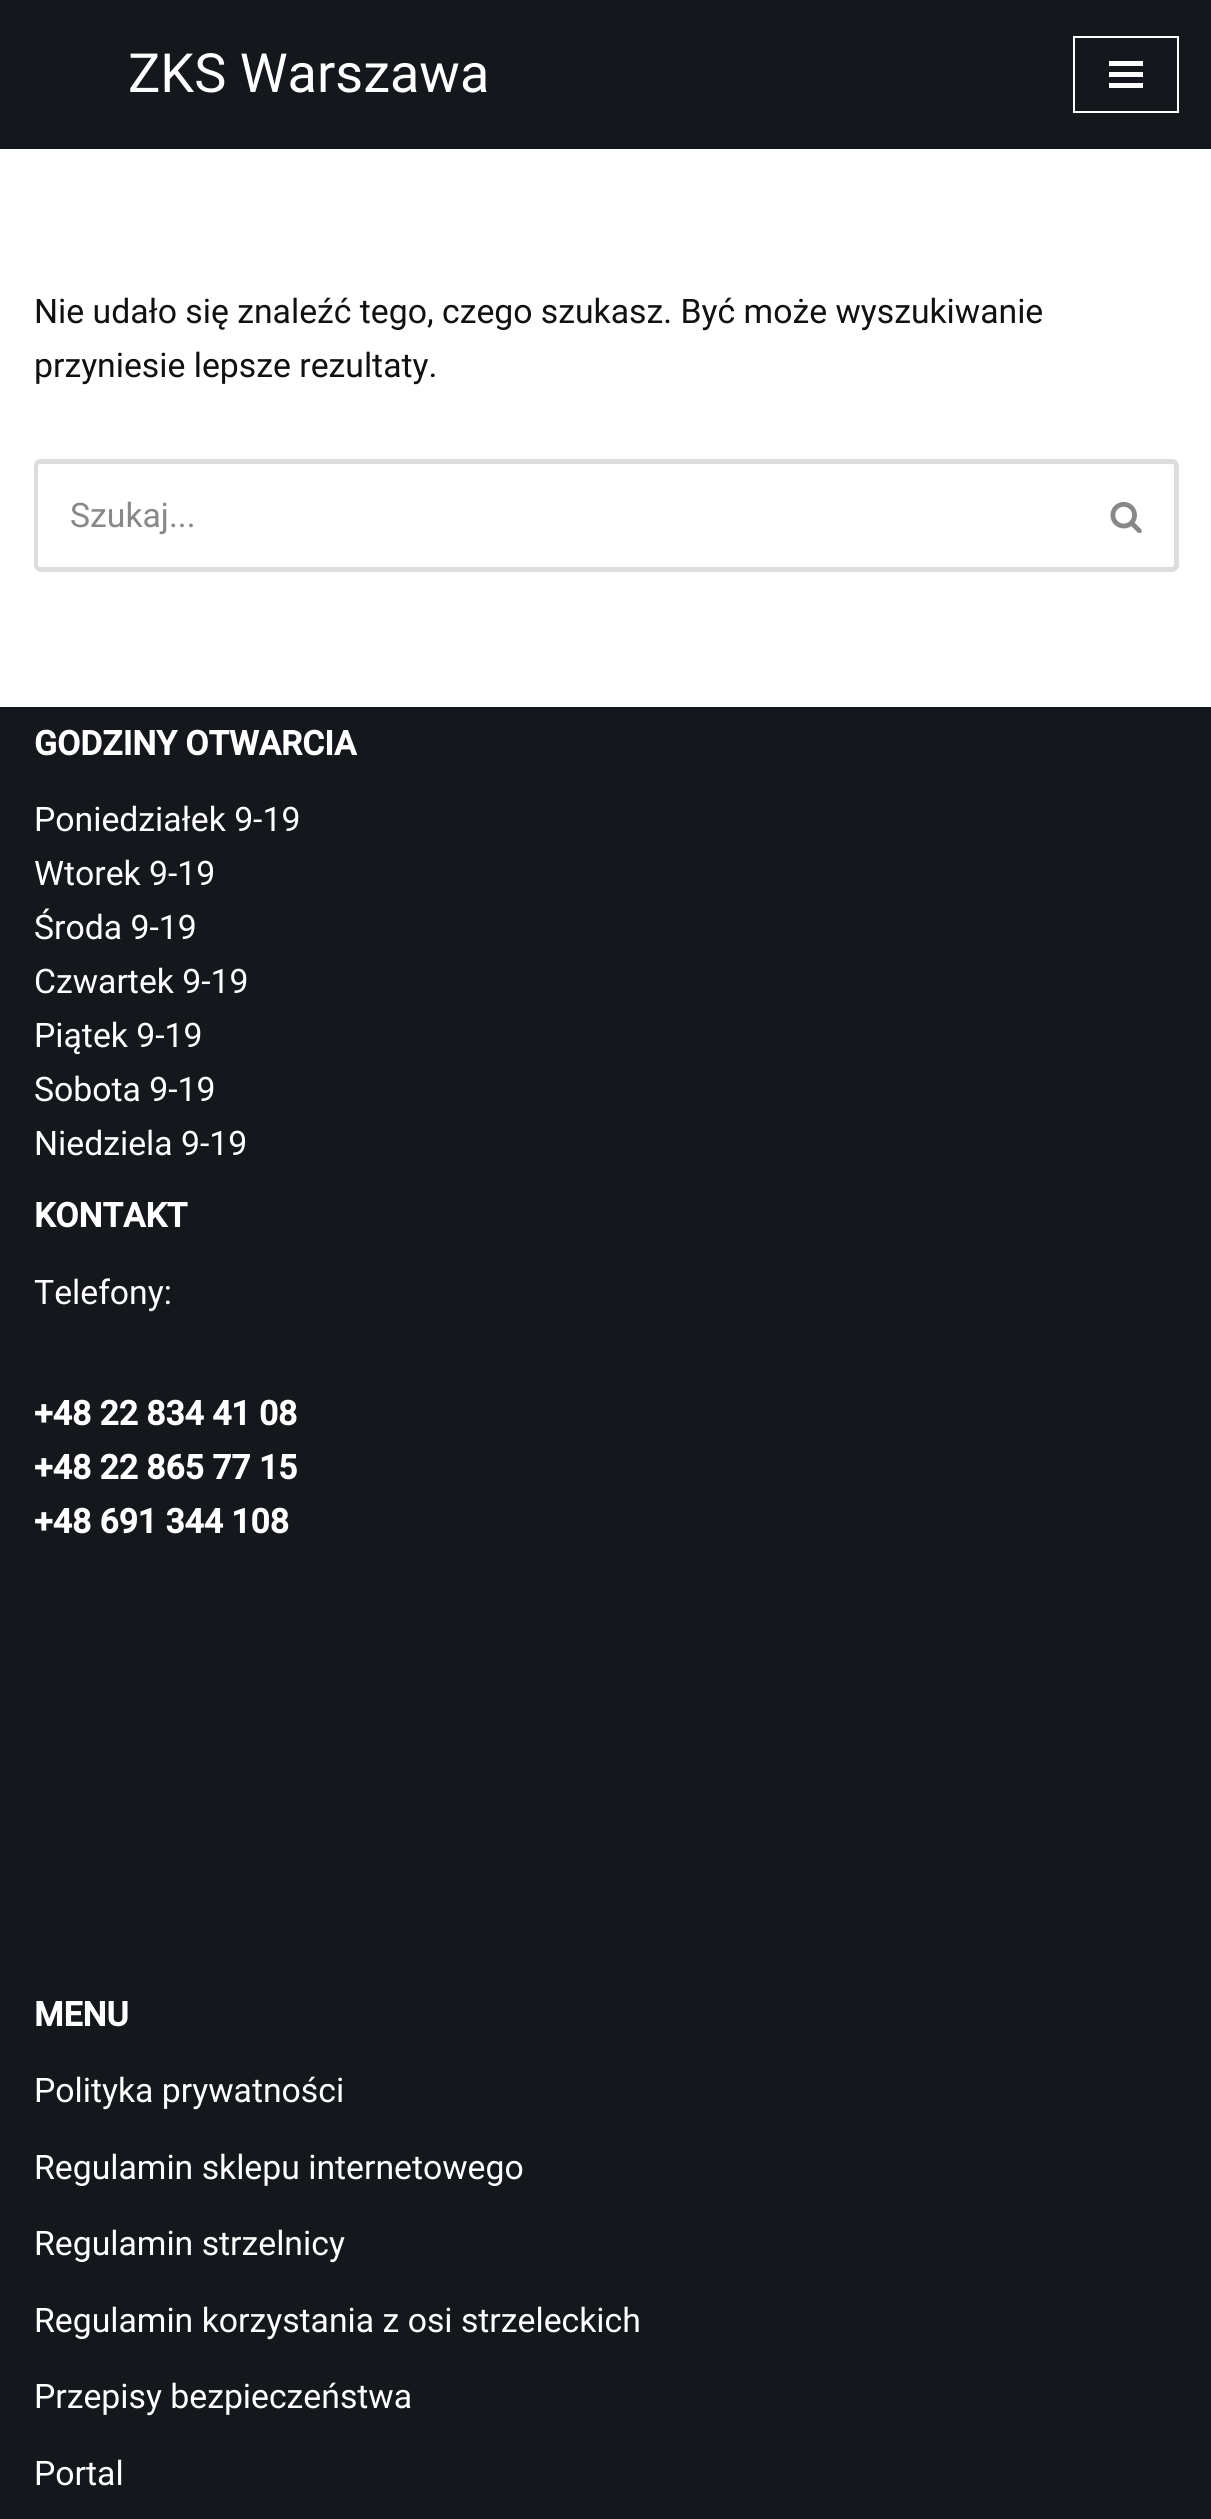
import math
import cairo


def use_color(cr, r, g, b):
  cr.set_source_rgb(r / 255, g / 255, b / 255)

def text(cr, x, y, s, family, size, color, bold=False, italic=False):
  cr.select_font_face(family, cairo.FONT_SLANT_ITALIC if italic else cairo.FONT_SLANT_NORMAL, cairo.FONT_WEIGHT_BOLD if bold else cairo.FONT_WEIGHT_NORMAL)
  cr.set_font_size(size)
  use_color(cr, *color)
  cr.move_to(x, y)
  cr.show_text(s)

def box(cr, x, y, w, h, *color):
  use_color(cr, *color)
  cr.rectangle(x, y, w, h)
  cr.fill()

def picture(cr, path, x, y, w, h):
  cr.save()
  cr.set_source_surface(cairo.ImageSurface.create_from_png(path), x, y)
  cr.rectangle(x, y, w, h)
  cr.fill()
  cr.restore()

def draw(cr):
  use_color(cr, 255, 255, 255)
  cr.paint()
  box(cr, 0, 0, 1211, 149, 20, 23, 28)
  cr.rectangle(1074, 37, 104, 75)
  use_color(cr, 255, 255, 255)
  cr.stroke()
  box(cr, 1109, 61, 34, 5, 255, 255, 255)
  box(cr, 1109, 72, 34, 5, 255, 255, 255)
  box(cr, 1109, 83, 34, 5, 255, 255, 255)
  use_color(cr, 221, 221, 221)
  cr.set_fill_rule(cairo.FILL_RULE_EVEN_ODD)
  cr.new_path()
  cr.move_to(40, 459)
  cr.line_to(1078, 459)
  cr.line_to(1078, 572)
  cr.line_to(40, 572)
  cr.curve_to(37, 572, 34, 568, 34, 565)
  cr.line_to(34, 466)
  cr.curve_to(34, 462, 37, 459, 40, 459)
  cr.close_path()
  cr.move_to(40, 464)
  cr.line_to(1078, 464)
  cr.line_to(1078, 567)
  cr.line_to(40, 567)
  cr.curve_to(39, 567, 38, 566, 38, 565)
  cr.line_to(38, 466)
  cr.curve_to(38, 465, 39, 464, 40, 464)
  cr.close_path()
  cr.fill()
  cr.new_path()
  cr.move_to(1078, 459)
  cr.line_to(1172, 459)
  cr.curve_to(1176, 459, 1179, 462, 1179, 466)
  cr.line_to(1179, 565)
  cr.curve_to(1179, 568, 1176, 572, 1172, 572)
  cr.line_to(1078, 572)
  cr.close_path()
  cr.move_to(1078, 464)
  cr.line_to(1172, 464)
  cr.curve_to(1173, 464, 1174, 465, 1174, 466)
  cr.line_to(1174, 565)
  cr.curve_to(1174, 566, 1173, 567, 1172, 567)
  cr.line_to(1078, 567)
  cr.close_path()
  cr.fill()
  picture(cr, "img_01.png", 1110, 501, 32, 32)
  box(cr, 0, 707, 1211, 1812, 20, 23, 28)
  text(cr, 128, 92, "ZKS Warszawa", "Roboto", 54, (255, 255, 255))
  text(cr, 34, 323, "Nie udało się znaleźć tego, czego szukasz. Być może wyszukiwanie", "Roboto", 33.75, (17, 17, 17))
  text(cr, 34, 377, "przyniesie lepsze rezultaty.", "Roboto", 33.75, (17, 17, 17))
  text(cr, 70, 527, "Szukaj...", "Roboto", 33.75, (136, 136, 136))
  text(cr, 34, 755, "GODZINY OTWARCIA", "Roboto", 33.75, (255, 255, 255), bold=True)
  text(cr, 34, 831, "Poniedziałek 9-19", "Roboto", 33.75, (255, 255, 255))
  text(cr, 34, 885, "Wtorek 9-19", "Roboto", 33.75, (255, 255, 255))
  text(cr, 34, 939, "Środa 9-19", "Roboto", 33.75, (255, 255, 255))
  text(cr, 34, 993, "Czwartek 9-19", "Roboto", 33.75, (255, 255, 255))
  text(cr, 34, 1047, "Piątek 9-19", "Roboto", 33.75, (255, 255, 255))
  text(cr, 34, 1101, "Sobota 9-19", "Roboto", 33.75, (255, 255, 255))
  text(cr, 34, 1155, "Niedziela 9-19", "Roboto", 33.75, (255, 255, 255))
  text(cr, 34, 1227, "KONTAKT", "Roboto", 33.75, (255, 255, 255), bold=True)
  text(cr, 34, 1304, "Telefony:", "Roboto", 33.75, (255, 255, 255))
  text(cr, 34, 1425, "+48 22 834 41 08", "Roboto", 33.75, (255, 255, 255), bold=True)
  text(cr, 34, 1479, "+48 22 865 77 15", "Roboto", 33.75, (255, 255, 255), bold=True)
  text(cr, 34, 1533, "+48 691 344 108", "Roboto", 33.75, (255, 255, 255), bold=True)
  text(cr, 34, 2026, "MENU", "Roboto", 33.75, (255, 255, 255), bold=True)
  text(cr, 34, 2102, "Polityka prywatności", "Roboto", 33.75, (255, 255, 255))
  text(cr, 34, 2179, "Regulamin sklepu internetowego", "Roboto", 33.75, (255, 255, 255))
  text(cr, 34, 2255, "Regulamin strzelnicy", "Roboto", 33.75, (255, 255, 255))
  text(cr, 34, 2332, "Regulamin korzystania z osi strzeleckich", "Roboto", 33.75, (255, 255, 255))
  text(cr, 34, 2408, "Przepisy bezpieczeństwa", "Roboto", 33.75, (255, 255, 255))
  text(cr, 34, 2485, "Portal", "Roboto", 33.75, (255, 255, 255))


surface = cairo.ImageSurface(cairo.FORMAT_RGB24, 1211, 2519)
cr = cairo.Context(surface)
options = cairo.FontOptions()
options.set_hint_metrics(cairo.HINT_METRICS_OFF)
options.set_hint_style(cairo.HINT_STYLE_NONE)
cr.set_font_options(options)
cr.set_miter_limit(4)
draw(cr)
surface.write_to_png("out.png")
